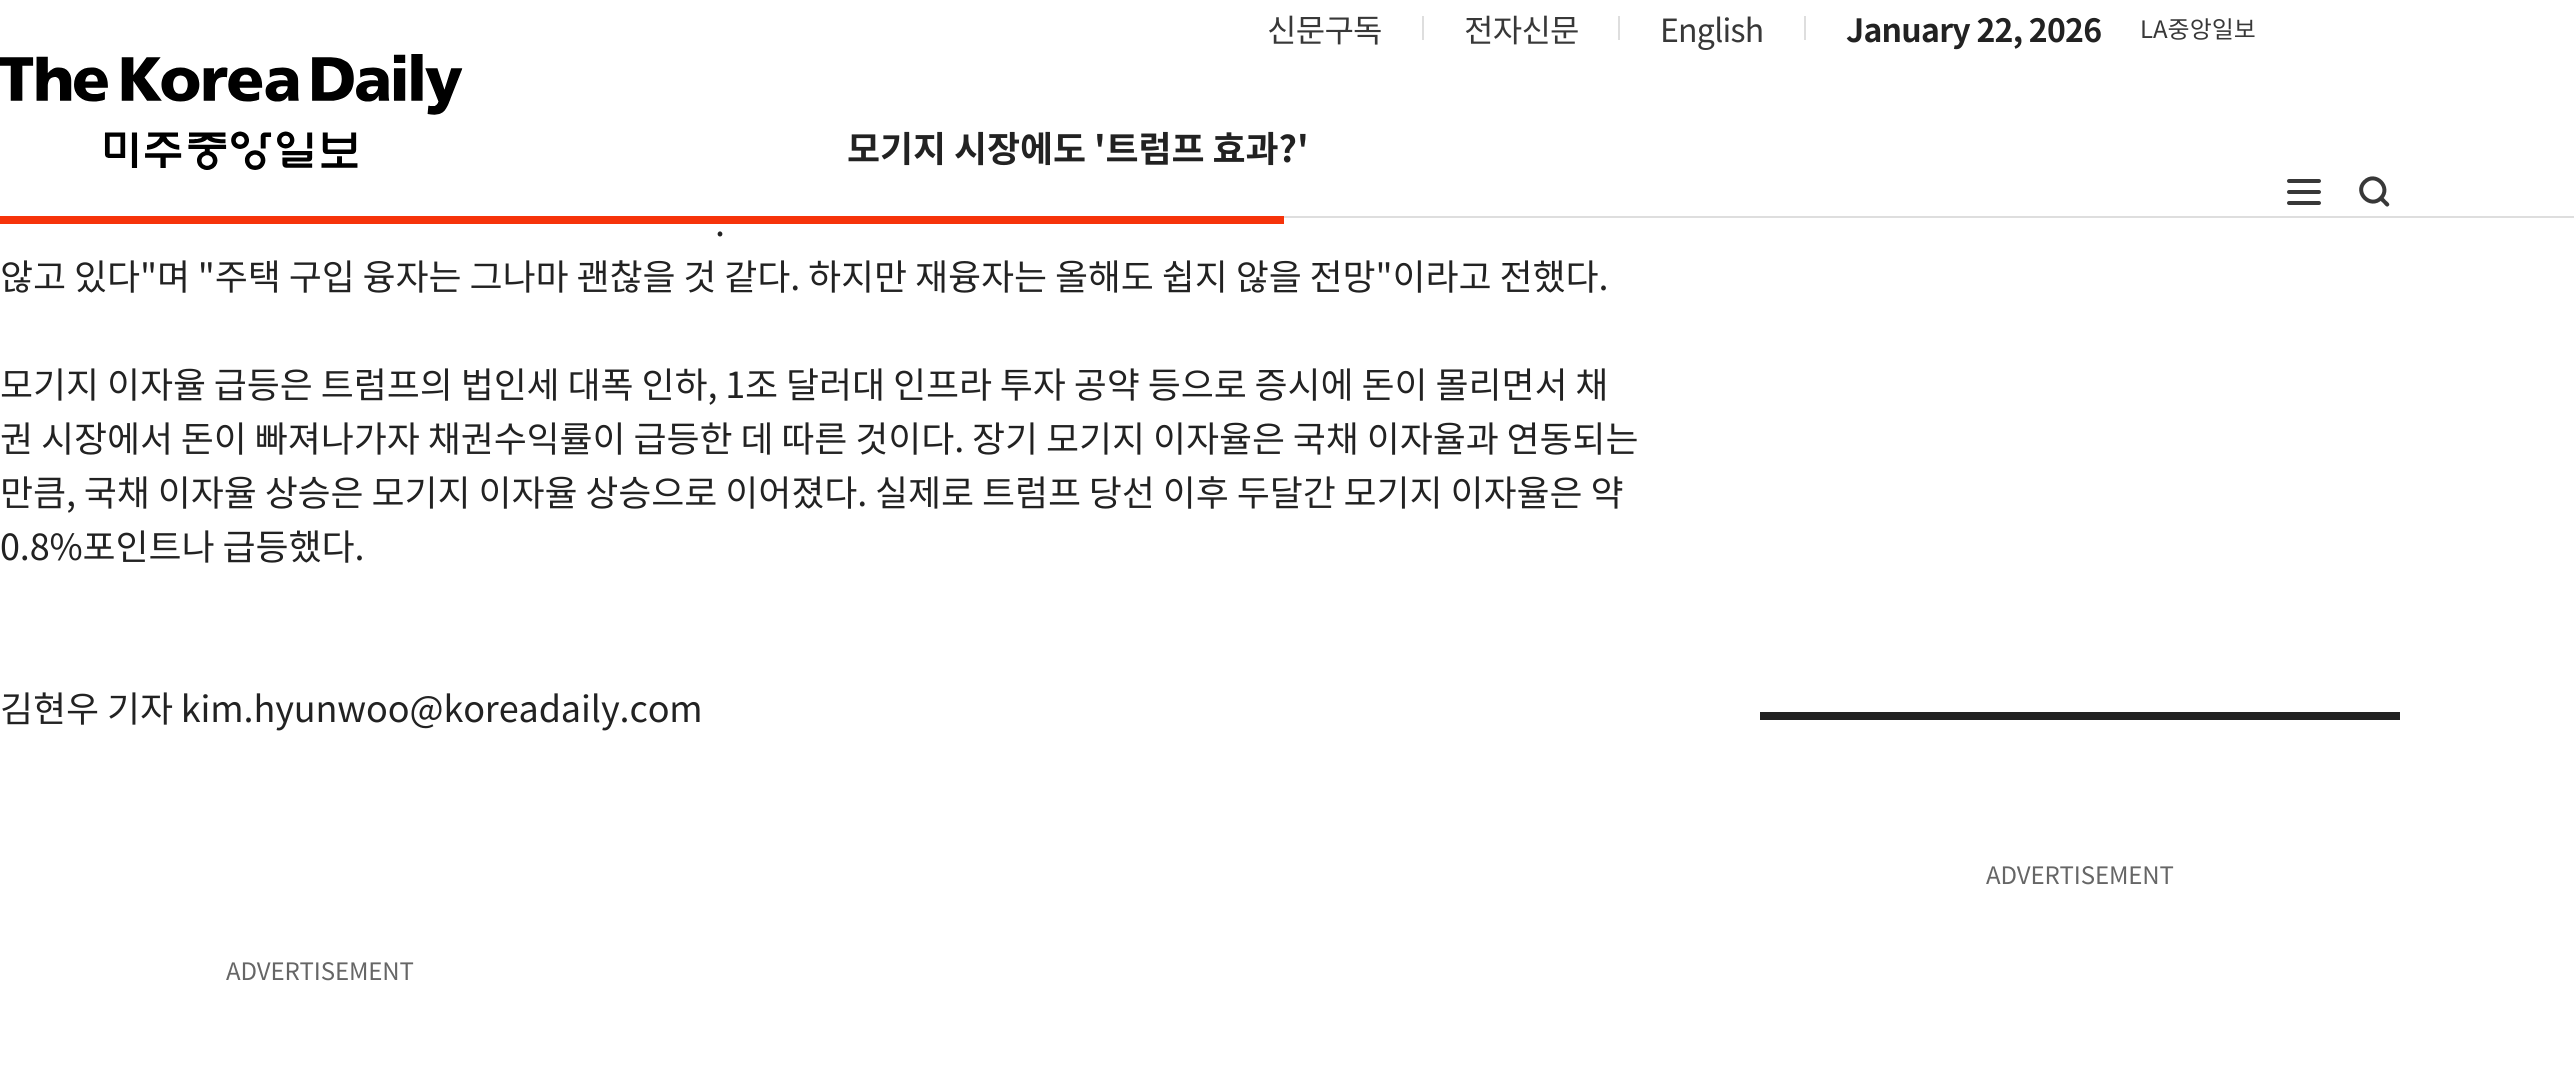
import math
import cairo


def use_color(cr, r, g, b):
  cr.set_source_rgb(r / 255, g / 255, b / 255)

def text(cr, x, y, s, family, size, color, bold=False, italic=False):
  cr.select_font_face(family, cairo.FONT_SLANT_ITALIC if italic else cairo.FONT_SLANT_NORMAL, cairo.FONT_WEIGHT_BOLD if bold else cairo.FONT_WEIGHT_NORMAL)
  cr.set_font_size(size)
  use_color(cr, *color)
  cr.move_to(x, y)
  cr.show_text(s)

def spaced_text(cr, x, y, s, letter, word):
  cr.move_to(x, y)
  for ch in s:
    cr.show_text(ch)
    cr.rel_move_to(letter + word * (ch == ' '), 0)

def box(cr, x, y, w, h, *color):
  use_color(cr, *color)
  cr.rectangle(x, y, w, h)
  cr.fill()

def round_rect(cr, x, y, w, h, r):
  cr.new_sub_path()
  for i, (u, v) in enumerate([(x + w - r, y + h - r), (x + r, y + h - r), (x + r, y + r), (x + w - r, y + r)]):
    cr.arc(u, v, r, i * math.pi / 2, (i + 1) * math.pi / 2)
  cr.close_path()

def picture(cr, path, x, y, w, h):
  cr.save()
  cr.set_source_surface(cairo.ImageSurface.create_from_png(path), x, y)
  cr.rectangle(x, y, w, h)
  cr.fill()
  cr.restore()

def draw(cr):
  use_color(cr, 255, 255, 255)
  cr.paint()
  box(cr, 1284, 216, 1290, 2, 222, 222, 222)
  box(cr, 1422, 16, 2, 24, 222, 222, 222)
  box(cr, 1618, 16, 2, 24, 222, 222, 222)
  box(cr, 1804, 16, 2, 24, 222, 222, 222)
  picture(cr, "img_01.png", 0, 54, 463, 116)
  use_color(cr, 56, 56, 56)
  round_rect(cr, 2287, 179, 34, 4, 2)
  cr.fill()
  round_rect(cr, 2287, 190, 34, 4, 2)
  cr.fill()
  round_rect(cr, 2287, 201, 34, 4, 2)
  cr.fill()
  cr.new_path()
  cr.move_to(2364.5, 182)
  cr.curve_to(2375.5, 171, 2391.5, 187.5, 2381, 198)
  cr.curve_to(2370.5, 209, 2354, 192.5, 2364.5, 182)
  cr.close_path()
  cr.set_line_width(4)
  cr.stroke()
  cr.new_path()
  cr.move_to(2380, 197.5)
  cr.curve_to(2382.5, 195.5, 2384.5, 199, 2386, 200.5)
  cr.curve_to(2387, 201.5, 2391, 204, 2388.5, 206)
  cr.curve_to(2386.5, 208, 2384.5, 204.5, 2383, 203)
  cr.curve_to(2382, 202, 2378, 199.5, 2380, 197.5)
  cr.close_path()
  cr.fill()
  box(cr, 0, 216, 1284, 8, 246, 51, 10)
  box(cr, 1760, 712, 640, 8, 34, 34, 34)
  cr.select_font_face("Noto Sans KR")
  cr.set_font_size(32)
  use_color(cr, 56, 56, 56)
  spaced_text(cr, 1267, 42, "신문구독", -0.75, 0)
  spaced_text(cr, 1464, 42, "전자신문", -0.75, 0)
  spaced_text(cr, 1660, 42, "English", -0.75, 0)
  cr.select_font_face("Noto Sans KR", cairo.FONT_SLANT_NORMAL, cairo.FONT_WEIGHT_BOLD)
  use_color(cr, 34, 34, 34)
  spaced_text(cr, 1846, 42, "January 22, 2026", -0.75, 0)
  text(cr, 2140, 38, "LA중앙일보", "Noto Sans KR", 24, (56, 56, 56))
  cr.select_font_face("Noto Sans KR", cairo.FONT_SLANT_NORMAL, cairo.FONT_WEIGHT_BOLD)
  cr.set_font_size(36)
  use_color(cr, 34, 34, 34)
  spaced_text(cr, 847, 162, "모기지 시장에도 '트럼프 효과?'", -0.13, 0)
  cr.select_font_face("Noto Sans KR")
  spaced_text(cr, 715, 236, ".", -0.13, 0)
  spaced_text(cr, 0, 290, "않고 있다\"며 \"주택 구입 융자는 그나마 괜찮을 것 같다. 하지만 재융자는 올해도 쉽지 않을 전망\"이라고 전했다.", -0.13, 0)
  spaced_text(cr, 0, 398, "모기지 이자율 급등은 트럼프의 법인세 대폭 인하, 1조 달러대 인프라 투자 공약 등으로 증시에 돈이 몰리면서 채", -0.13, 0)
  spaced_text(cr, 0, 452, "권 시장에서 돈이 빠져나가자 채권수익률이 급등한 데 따른 것이다. 장기 모기지 이자율은 국채 이자율과 연동되는", -0.13, 0)
  spaced_text(cr, 0, 506, "만큼, 국채 이자율 상승은 모기지 이자율 상승으로 이어졌다. 실제로 트럼프 당선 이후 두달간 모기지 이자율은 약", -0.13, 0)
  spaced_text(cr, 0, 560, "0.8%포인트나 급등했다.", -0.13, 0)
  spaced_text(cr, 0, 722, "김현우 기자 kim.hyunwoo@koreadaily.com", -0.13, 0)
  cr.set_font_size(24)
  use_color(cr, 102, 102, 102)
  spaced_text(cr, 226, 980, "ADVERTISEMENT", -0.13, 0)
  spaced_text(cr, 1986, 884, "ADVERTISEMENT", -0.13, 0)


surface = cairo.ImageSurface(cairo.FORMAT_RGB24, 2574, 1078)
cr = cairo.Context(surface)
options = cairo.FontOptions()
options.set_hint_metrics(cairo.HINT_METRICS_OFF)
options.set_hint_style(cairo.HINT_STYLE_NONE)
cr.set_font_options(options)
cr.set_miter_limit(4)
draw(cr)
surface.write_to_png("out.png")
